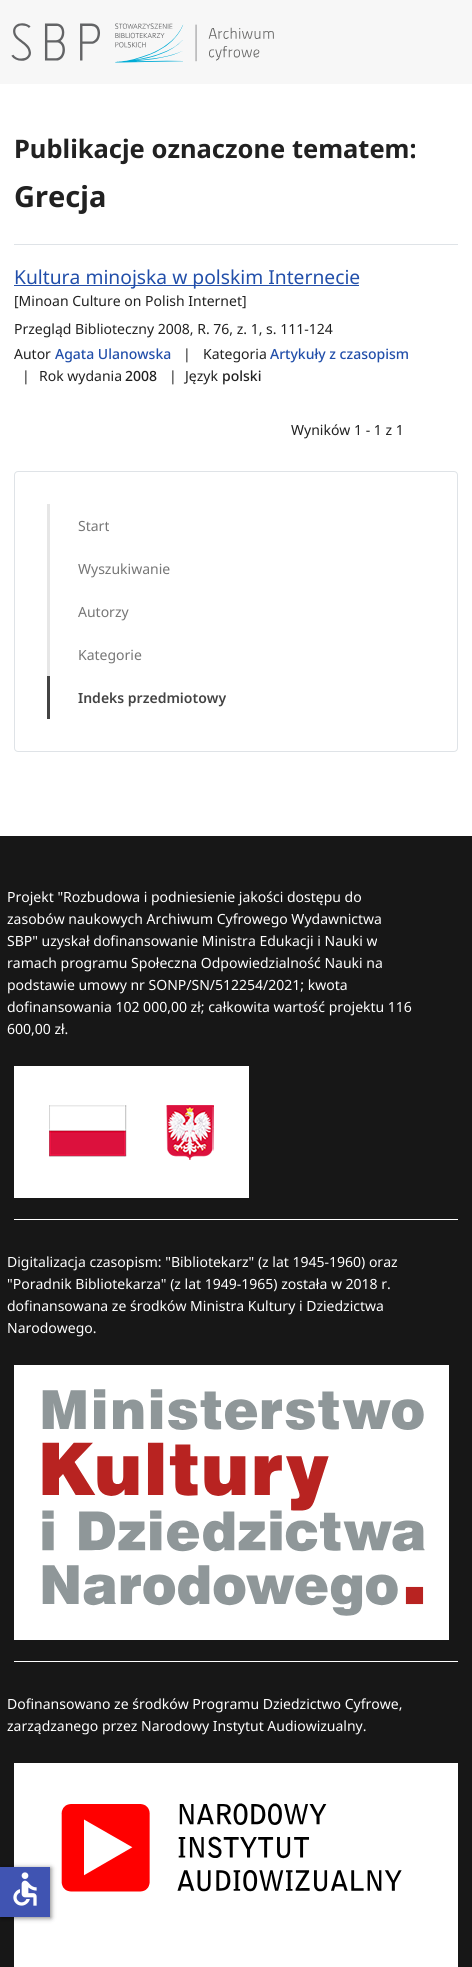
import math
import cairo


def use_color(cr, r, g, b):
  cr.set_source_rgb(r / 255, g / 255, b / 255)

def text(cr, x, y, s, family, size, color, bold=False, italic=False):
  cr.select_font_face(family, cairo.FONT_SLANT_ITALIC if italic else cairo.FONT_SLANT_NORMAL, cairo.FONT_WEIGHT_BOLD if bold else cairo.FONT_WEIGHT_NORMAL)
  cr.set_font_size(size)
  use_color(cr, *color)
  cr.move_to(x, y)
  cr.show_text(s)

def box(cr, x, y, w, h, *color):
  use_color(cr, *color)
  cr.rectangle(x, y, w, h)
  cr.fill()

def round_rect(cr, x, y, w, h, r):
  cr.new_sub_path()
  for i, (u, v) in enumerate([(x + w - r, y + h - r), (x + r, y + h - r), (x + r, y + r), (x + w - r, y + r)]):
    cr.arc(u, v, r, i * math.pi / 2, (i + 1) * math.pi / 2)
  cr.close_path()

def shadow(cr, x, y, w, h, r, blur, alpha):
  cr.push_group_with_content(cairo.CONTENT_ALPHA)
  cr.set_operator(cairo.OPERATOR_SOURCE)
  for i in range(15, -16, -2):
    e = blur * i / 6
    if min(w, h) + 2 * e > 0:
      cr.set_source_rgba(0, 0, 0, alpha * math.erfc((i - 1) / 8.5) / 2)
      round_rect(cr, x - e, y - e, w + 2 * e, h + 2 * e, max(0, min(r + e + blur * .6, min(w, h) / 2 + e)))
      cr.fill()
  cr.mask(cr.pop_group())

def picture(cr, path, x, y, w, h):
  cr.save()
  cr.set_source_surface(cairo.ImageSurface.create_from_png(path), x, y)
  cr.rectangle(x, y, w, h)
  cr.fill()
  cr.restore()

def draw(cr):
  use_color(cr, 255, 255, 255)
  cr.paint()
  box(cr, 0, 0, 472, 84, 247, 247, 247)
  picture(cr, "img_01.png", 11, 23, 263, 40)
  box(cr, 14, 244, 444, 1, 223, 227, 231)
  box(cr, 14, 285, 345, 1, 34, 79, 170)
  round_rect(cr, 14.5, 471.5, 443, 280, 3.5)
  use_color(cr, 223, 227, 231)
  cr.set_line_width(1)
  cr.stroke()
  box(cr, 47, 504, 3, 172, 230, 230, 230)
  box(cr, 47, 676, 3, 43, 67, 67, 67)
  box(cr, 0, 836, 472, 1131, 23, 23, 23)
  box(cr, 14, 1066, 235, 132, 255, 255, 255)
  picture(cr, "img_02.png", 49, 1105, 165, 55)
  box(cr, 14, 1219, 444, 1, 255, 255, 255)
  box(cr, 14, 1365, 435, 275, 255, 255, 255)
  picture(cr, "img_03.png", 42, 1389, 383, 227)
  box(cr, 14, 1661, 444, 1, 255, 255, 255)
  box(cr, 14, 1763, 444, 204, 255, 255, 255)
  picture(cr, "img_04.png", 61, 1803, 341, 89)
  use_color(cr, 0, 0, 0)
  shadow(cr, 1, 1868, 50, 50, 0, 2.5, 0.5)
  box(cr, 0, 1867, 50, 50, 64, 84, 178)
  picture(cr, "img_05.png", 13, 1872, 24, 34)
  text(cr, 14, 158, "Publikacje oznaczone tematem:", "Noto Sans", 25.5, (33, 33, 33), bold=True)
  text(cr, 14, 207, "Grecja", "Noto Sans", 29, (33, 33, 33), bold=True)
  text(cr, 14, 284, "Kultura minojska w polskim Internecie", "Noto Sans", 19.25, (34, 79, 170))
  text(cr, 14, 306, "[Minoan Culture on Polish Internet]", "Noto Sans", 14, (33, 33, 33))
  text(cr, 14, 334, "Przegląd Biblioteczny 2008, R. 76, z. 1, s. 111-124", "Noto Sans", 14, (33, 33, 33))
  text(cr, 14, 359, "Autor", "Noto Sans", 14, (33, 33, 33))
  text(cr, 55, 359, "Agata Ulanowska", "Noto Sans Medium", 14, (34, 79, 170))
  text(cr, 183, 359, "|", "Noto Sans", 14, (33, 33, 33))
  text(cr, 203, 359, "Kategoria", "Noto Sans", 14, (33, 33, 33))
  text(cr, 270, 359, "Artykuły z czasopism", "Noto Sans Medium", 14, (34, 79, 170))
  text(cr, 22, 381, "|", "Noto Sans", 14, (33, 33, 33))
  text(cr, 39, 381, "Rok wydania", "Noto Sans", 14, (33, 33, 33))
  text(cr, 125, 381, "2008", "Noto Sans Medium", 14, (33, 33, 33))
  text(cr, 169, 381, "|", "Noto Sans", 14, (33, 33, 33))
  text(cr, 185, 381, "Język", "Noto Sans", 14, (33, 33, 33))
  text(cr, 222, 381, "polski", "Noto Sans Medium", 14, (33, 33, 33))
  text(cr, 291, 435, "Wyników 1 - 1 z 1", "Noto Sans", 14, (33, 33, 33))
  text(cr, 78, 531, "Start", "Noto Sans", 14, (118, 118, 118))
  text(cr, 78, 574, "Wyszukiwanie", "Noto Sans", 14, (118, 118, 118))
  text(cr, 78, 617, "Autorzy", "Noto Sans", 14, (118, 118, 118))
  text(cr, 78, 660, "Kategorie", "Noto Sans", 14, (118, 118, 118))
  text(cr, 78, 703, "Indeks przedmiotowy", "Noto Sans SemiBold", 14, (67, 67, 67))
  text(cr, 7, 902, "Projekt \"Rozbudowa i podniesienie jakości dostępu do", "Noto Sans", 14, (255, 255, 255))
  text(cr, 7, 924, "zasobów naukowych Archiwum Cyfrowego Wydawnictwa", "Noto Sans", 14, (255, 255, 255))
  text(cr, 7, 946, "SBP\" uzyskał dofinansowanie Ministra Edukacji i Nauki w", "Noto Sans", 14, (255, 255, 255))
  text(cr, 7, 968, "ramach programu Społeczna Odpowiedzialność Nauki na", "Noto Sans", 14, (255, 255, 255))
  text(cr, 7, 990, "podstawie umowy nr SONP/SN/512254/2021; kwota", "Noto Sans", 14, (255, 255, 255))
  text(cr, 7, 1012, "dofinansowania 102 000,00 zł; całkowita wartość projektu 116", "Noto Sans", 14, (255, 255, 255))
  text(cr, 7, 1034, "600,00 zł.", "Noto Sans", 14, (255, 255, 255))
  text(cr, 7, 1267, "Digitalizacja czasopism: \"Bibliotekarz\" (z lat 1945-1960) oraz", "Noto Sans", 14, (255, 255, 255))
  text(cr, 7, 1289, "\"Poradnik Bibliotekarza\" (z lat 1949-1965) została w 2018 r.", "Noto Sans", 14, (255, 255, 255))
  text(cr, 7, 1311, "dofinansowana ze środków Ministra Kultury i Dziedzictwa", "Noto Sans", 14, (255, 255, 255))
  text(cr, 7, 1333, "Narodowego.", "Noto Sans", 14, (255, 255, 255))
  text(cr, 7, 1709, "Dofinansowano ze środków Programu Dziedzictwo Cyfrowe,", "Noto Sans", 14, (255, 255, 255))
  text(cr, 7, 1731, "zarządzanego przez Narodowy Instytut Audiowizualny.", "Noto Sans", 14, (255, 255, 255))


surface = cairo.ImageSurface(cairo.FORMAT_RGB24, 472, 1967)
cr = cairo.Context(surface)
options = cairo.FontOptions()
options.set_hint_metrics(cairo.HINT_METRICS_OFF)
options.set_hint_style(cairo.HINT_STYLE_NONE)
cr.set_font_options(options)
cr.set_miter_limit(4)
draw(cr)
surface.write_to_png("out.png")
